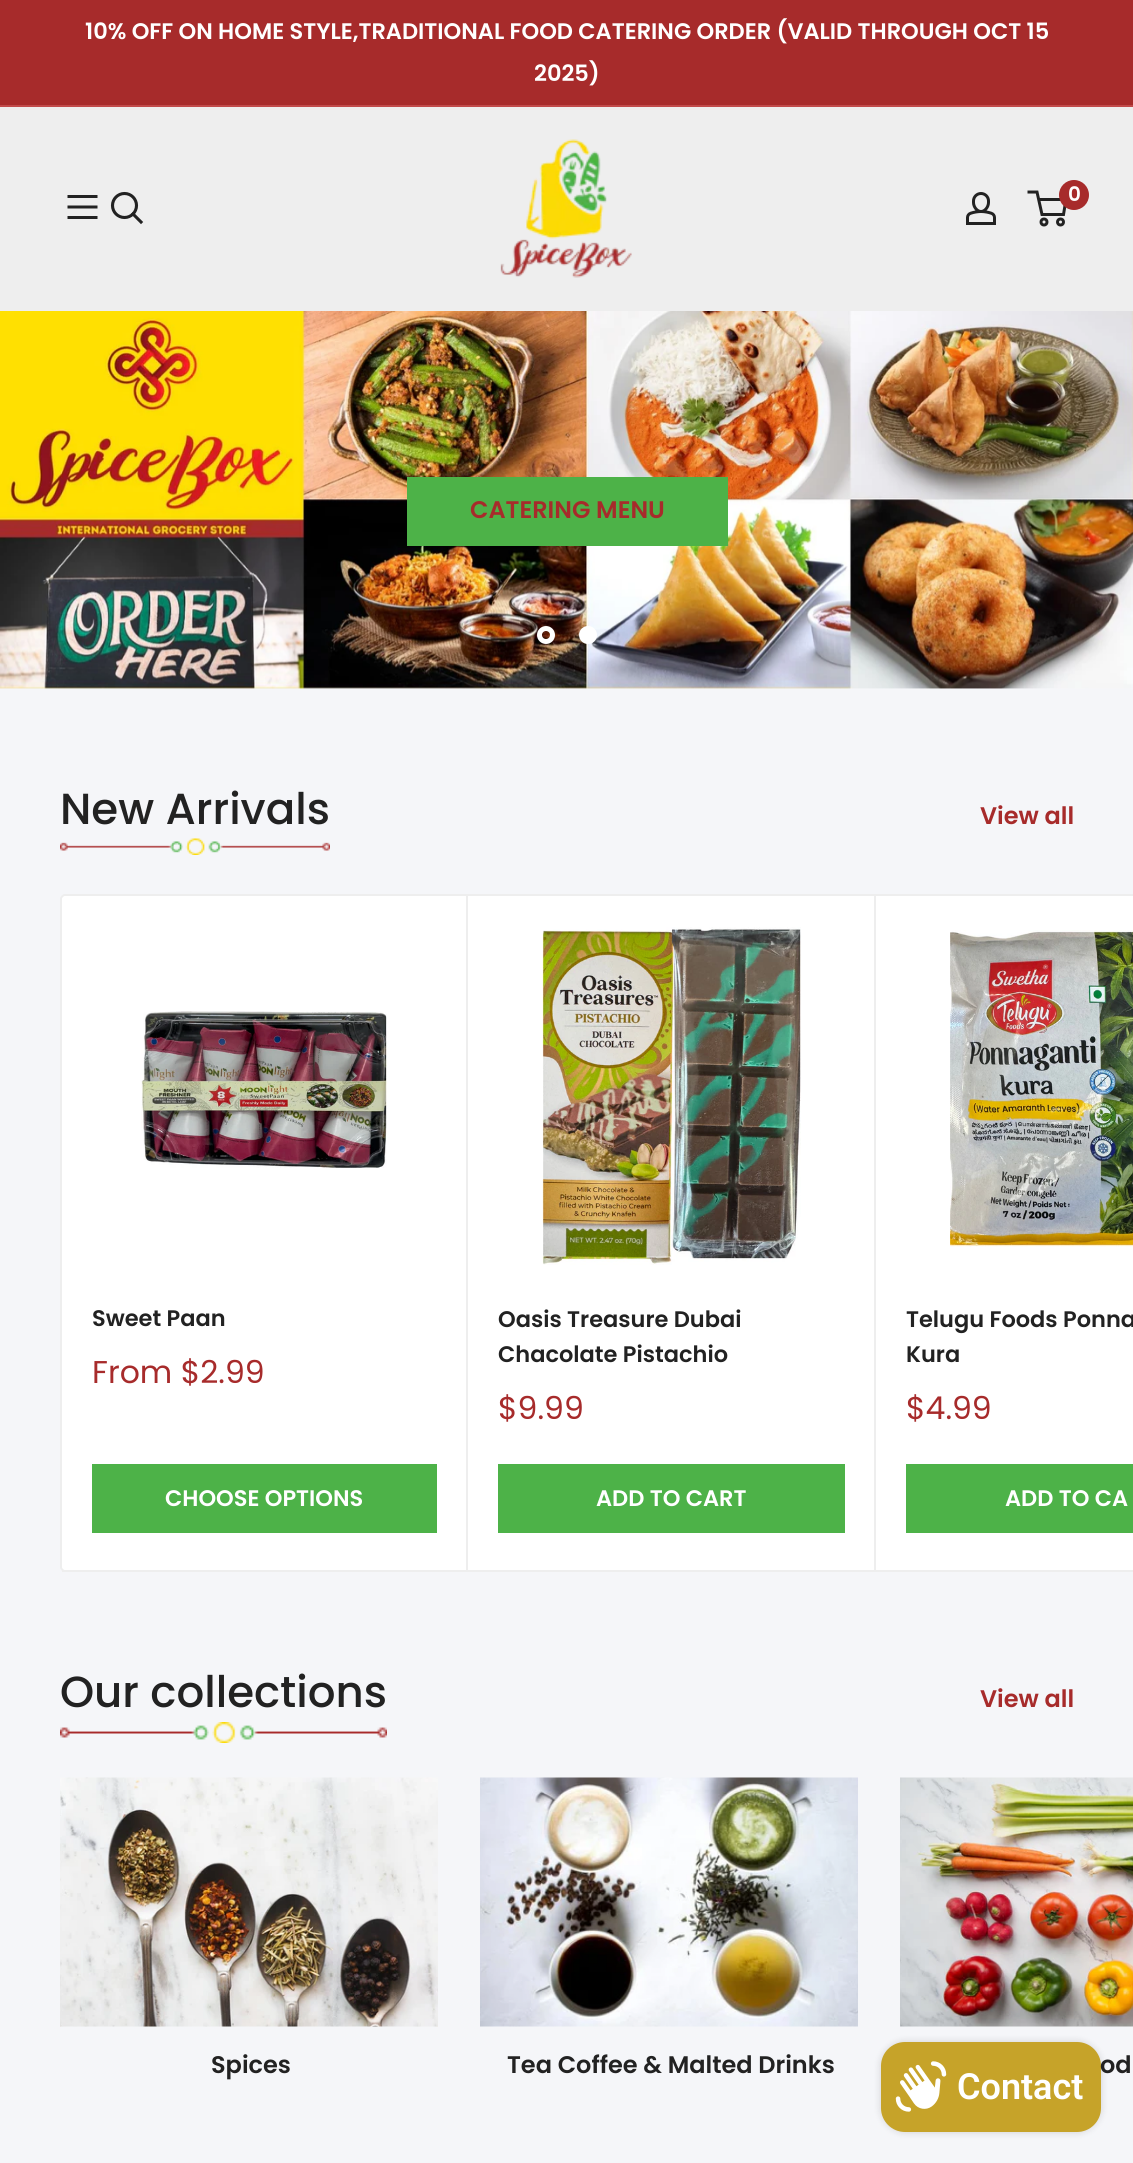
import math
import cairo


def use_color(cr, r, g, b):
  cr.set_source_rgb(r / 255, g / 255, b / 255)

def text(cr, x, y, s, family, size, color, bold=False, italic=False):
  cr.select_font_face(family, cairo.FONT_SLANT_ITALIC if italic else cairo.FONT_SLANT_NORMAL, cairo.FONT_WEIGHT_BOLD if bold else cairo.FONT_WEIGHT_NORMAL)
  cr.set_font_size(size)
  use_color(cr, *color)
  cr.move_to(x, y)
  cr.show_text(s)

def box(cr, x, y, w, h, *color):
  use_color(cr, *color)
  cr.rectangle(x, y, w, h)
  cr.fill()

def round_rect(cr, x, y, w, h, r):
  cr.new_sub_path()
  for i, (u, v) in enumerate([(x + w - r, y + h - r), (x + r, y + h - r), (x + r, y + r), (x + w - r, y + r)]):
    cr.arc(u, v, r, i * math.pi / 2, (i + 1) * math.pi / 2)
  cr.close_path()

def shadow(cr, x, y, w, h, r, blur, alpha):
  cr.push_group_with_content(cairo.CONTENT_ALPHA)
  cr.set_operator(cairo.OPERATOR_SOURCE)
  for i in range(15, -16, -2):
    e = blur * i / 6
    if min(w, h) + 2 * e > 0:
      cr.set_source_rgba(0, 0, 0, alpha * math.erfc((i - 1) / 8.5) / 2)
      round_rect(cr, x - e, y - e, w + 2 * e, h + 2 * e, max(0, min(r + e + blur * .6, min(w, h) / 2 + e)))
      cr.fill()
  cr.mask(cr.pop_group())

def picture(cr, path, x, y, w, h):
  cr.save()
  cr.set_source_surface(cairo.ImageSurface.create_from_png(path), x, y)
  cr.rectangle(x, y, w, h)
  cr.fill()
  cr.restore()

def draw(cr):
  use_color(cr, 245, 246, 249)
  cr.paint()
  box(cr, 0, 0, 1133, 105, 167, 43, 43)
  box(cr, 0, 105, 1133, 2, 193, 74, 74)
  box(cr, 0, 107, 1133, 204, 238, 238, 238)
  picture(cr, "img_01.png", 67, 195, 31, 24)
  cr.new_path()
  cr.move_to(141, 222)
  cr.line_to(133, 214)
  use_color(cr, 34, 34, 34)
  cr.set_line_width(3.1)
  cr.set_line_cap(cairo.LINE_CAP_SQUARE)
  cr.stroke()
  cr.arc(124.5, 205.5, 12, 0, 2 * math.pi)
  cr.set_line_cap(cairo.LINE_CAP_BUTT)
  cr.stroke()
  picture(cr, "img_02.png", 500, 139, 132, 139)
  picture(cr, "img_03.png", 966, 192, 30, 33)
  cr.arc(1044, 222, 3, 0, 2 * math.pi)
  cr.set_line_width(3)
  cr.stroke()
  cr.arc(1060.5, 222, 3, 0, 2 * math.pi)
  cr.stroke()
  cr.new_path()
  cr.move_to(1038.5, 199.5)
  cr.line_to(1066, 199.5)
  cr.line_to(1063.5, 214.5)
  cr.line_to(1042, 214.5)
  cr.line_to(1037, 192)
  cr.line_to(1027.5, 192)
  cr.stroke()
  use_color(cr, 167, 43, 43)
  cr.arc(1074, 195, 15, 0, 2 * math.pi)
  cr.fill()
  picture(cr, "img_04.png", 0, 311, 1133, 378)
  box(cr, 407, 477, 321, 69, 77, 178, 72)
  cr.arc(546, 635, 6.5, 0, 2 * math.pi)
  use_color(cr, 255, 255, 255)
  cr.set_line_width(5)
  cr.stroke()
  cr.arc(588, 635, 6.5, 0, 2 * math.pi)
  cr.fill_preserve()
  cr.stroke()
  picture(cr, "img_05.png", 60, 838, 270, 17)
  cr.new_path()
  cr.move_to(65, 895)
  cr.line_to(467, 895)
  cr.line_to(467, 1571)
  cr.line_to(65, 1571)
  cr.curve_to(63, 1571, 61, 1569, 61, 1567)
  cr.line_to(61, 899)
  cr.curve_to(61, 897, 63, 895, 65, 895)
  cr.close_path()
  cr.fill_preserve()
  use_color(cr, 238, 238, 238)
  cr.set_line_width(2)
  cr.stroke()
  picture(cr, "img_06.png", 141, 1011, 246, 157)
  box(cr, 92, 1464, 345, 69, 77, 178, 72)
  box(cr, 468, 896, 406, 674, 255, 255, 255)
  box(cr, 468, 894, 665, 2, 238, 238, 238)
  box(cr, 875, 1571, 1, 1, 238, 238, 238)
  picture(cr, "img_07.png", 542, 927, 259, 338)
  box(cr, 498, 1464, 347, 69, 77, 178, 72)
  box(cr, 876, 896, 257, 674, 255, 255, 255)
  picture(cr, "img_08.png", 950, 930, 183, 317)
  box(cr, 906, 1464, 227, 69, 77, 178, 72)
  use_color(cr, 238, 238, 238)
  cr.new_path()
  cr.move_to(876, 1570)
  cr.line_to(876, 1572)
  cr.line_to(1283, 1572)
  cr.line_to(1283, 897)
  cr.line_to(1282, 897)
  cr.line_to(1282, 1570)
  cr.close_path()
  cr.fill()
  picture(cr, "img_09.png", 60, 1722, 327, 21)
  picture(cr, "img_10.png", 60, 1777, 378, 250)
  picture(cr, "img_11.png", 480, 1777, 378, 250)
  picture(cr, "img_12.png", 900, 1777, 233, 250)
  use_color(cr, 0, 0, 0)
  shadow(cr, 881, 2042, 220, 90, 24, 4, 0.15)
  use_color(cr, 198, 163, 41)
  round_rect(cr, 881, 2042, 220, 90, 24)
  cr.fill()
  picture(cr, "img_13.png", 895, 2061, 52, 51)
  text(cr, 85, 39, "10% OFF ON HOME STYLE,TRADITIONAL FOOD CATERING ORDER (VALID THROUGH OCT 15", "Poppins SemiBold", 22.5, (255, 255, 255))
  text(cr, 534, 81, "2025)", "Poppins SemiBold", 22.5, (255, 255, 255))
  text(cr, 1068, 201, "0", "Poppins SemiBold", 20, (255, 255, 255))
  text(cr, 470, 518, "CATERING MENU", "Poppins SemiBold", 24, (167, 43, 43))
  text(cr, 60, 824, "New Arrivals", "Poppins Medium", 43.5, (34, 34, 34))
  text(cr, 980, 824, "View all", "Poppins SemiBold", 24, (167, 43, 43))
  text(cr, 92, 1326, "Sweet Paan", "Poppins SemiBold", 22.5, (34, 34, 34))
  text(cr, 92, 1383, "From $2.99", "Poppins", 31.5, (167, 43, 43))
  text(cr, 165, 1506, "CHOOSE OPTIONS", "Poppins SemiBold", 22.5, (255, 255, 255))
  use_color(cr, 238, 238, 238)
  cr.new_path()
  cr.move_to(62, 1570)
  cr.line_to(62, 1572)
  cr.line_to(467, 1572)
  cr.line_to(467, 897)
  cr.line_to(466, 897)
  cr.line_to(466, 1570)
  cr.close_path()
  cr.fill()
  text(cr, 498, 1327, "Oasis Treasure Dubai", "Poppins SemiBold", 22.5, (34, 34, 34))
  text(cr, 498, 1362, "Chacolate Pistachio", "Poppins SemiBold", 22.5, (34, 34, 34))
  text(cr, 498, 1419, "$9.99", "Poppins", 31.5, (167, 43, 43))
  text(cr, 596, 1506, "ADD TO CART", "Poppins SemiBold", 22.5, (255, 255, 255))
  use_color(cr, 238, 238, 238)
  cr.new_path()
  cr.move_to(468, 1570)
  cr.line_to(468, 1572)
  cr.line_to(875, 1572)
  cr.line_to(875, 897)
  cr.line_to(874, 897)
  cr.line_to(874, 1570)
  cr.close_path()
  cr.fill()
  cr.new_path()
  cr.move_to(470, 1570)
  cr.line_to(470, 1571)
  cr.line_to(876, 1571)
  cr.line_to(876, 896)
  cr.line_to(874, 896)
  cr.line_to(874, 1570)
  cr.close_path()
  cr.fill()
  text(cr, 906, 1327, "Telugu Foods Ponna", "Poppins SemiBold", 22.5, (34, 34, 34))
  text(cr, 906, 1362, "Kura", "Poppins SemiBold", 22.5, (34, 34, 34))
  text(cr, 906, 1419, "$4.99", "Poppins", 31.5, (167, 43, 43))
  text(cr, 1005, 1506, "ADD TO CA", "Poppins SemiBold", 22.5, (255, 255, 255))
  text(cr, 60, 1707, "Our collections", "Poppins Medium", 43.5, (34, 34, 34))
  text(cr, 980, 1707, "View all", "Poppins SemiBold", 24, (167, 43, 43))
  text(cr, 211, 2073, "Spices", "Poppins SemiBold", 24, (34, 34, 34))
  text(cr, 507, 2073, "Tea Coffee & Malted Drinks", "Poppins SemiBold", 24, (34, 34, 34))
  text(cr, 1100, 2073, "od", "Poppins SemiBold", 24, (34, 34, 34))
  text(cr, 957, 2099, "Contact", "Roboto SemiBold", 36, (255, 255, 255))


surface = cairo.ImageSurface(cairo.FORMAT_RGB24, 1133, 2163)
cr = cairo.Context(surface)
options = cairo.FontOptions()
options.set_hint_metrics(cairo.HINT_METRICS_OFF)
options.set_hint_style(cairo.HINT_STYLE_NONE)
cr.set_font_options(options)
cr.set_miter_limit(4)
draw(cr)
surface.write_to_png("out.png")
